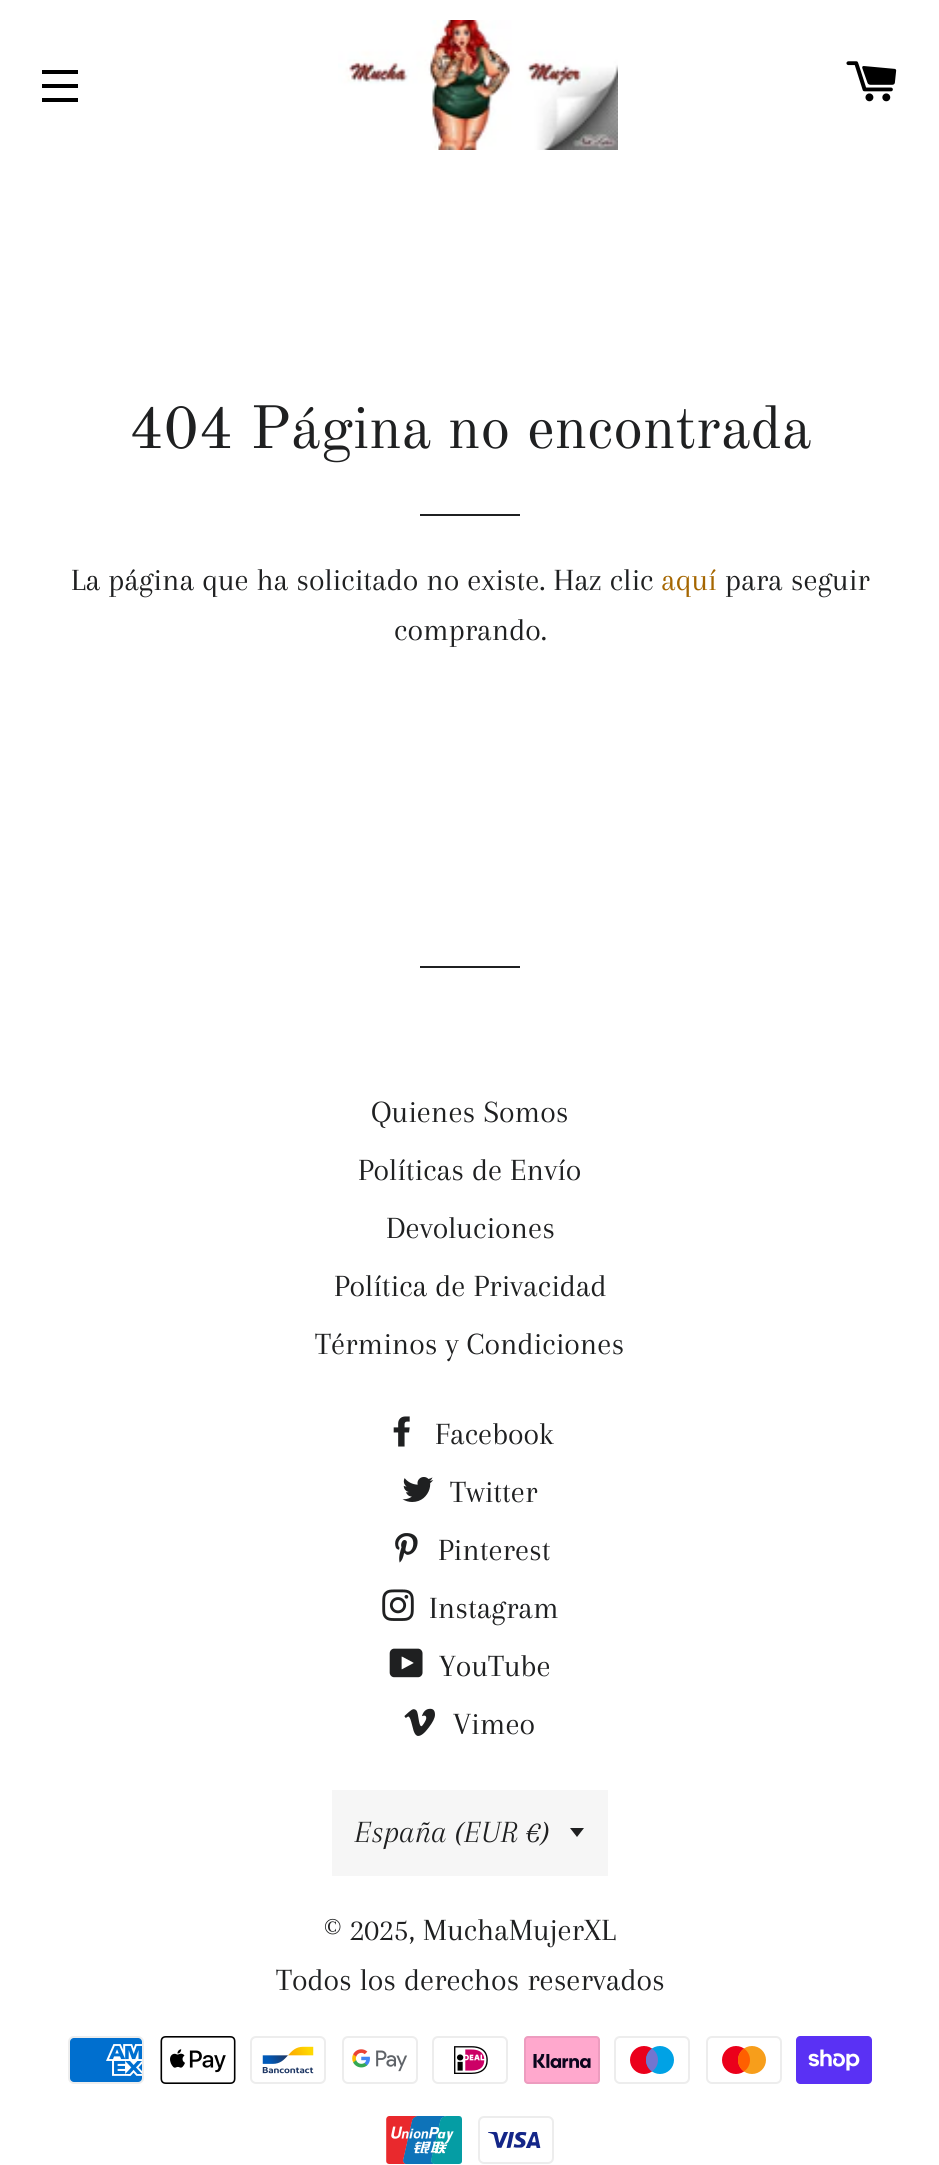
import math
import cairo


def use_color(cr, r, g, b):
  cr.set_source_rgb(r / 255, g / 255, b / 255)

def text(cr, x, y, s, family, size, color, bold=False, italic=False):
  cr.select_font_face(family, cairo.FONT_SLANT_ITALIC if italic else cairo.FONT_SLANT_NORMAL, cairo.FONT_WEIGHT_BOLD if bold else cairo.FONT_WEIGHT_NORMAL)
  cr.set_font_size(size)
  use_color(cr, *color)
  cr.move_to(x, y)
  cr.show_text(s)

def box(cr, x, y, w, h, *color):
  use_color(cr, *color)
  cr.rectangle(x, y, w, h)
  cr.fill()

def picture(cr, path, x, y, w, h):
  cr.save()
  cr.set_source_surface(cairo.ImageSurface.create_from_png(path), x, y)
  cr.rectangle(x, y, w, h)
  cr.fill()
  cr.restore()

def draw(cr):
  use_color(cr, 255, 255, 255)
  cr.paint()
  box(cr, 42, 70, 36, 4, 0, 0, 0)
  box(cr, 42, 84, 36, 4, 0, 0, 0)
  box(cr, 42, 98, 36, 4, 0, 0, 0)
  picture(cr, "img_01.png", 338, 20, 280, 130)
  picture(cr, "img_02.png", 846, 61, 51, 41)
  box(cr, 420, 514, 100, 2, 31, 32, 33)
  box(cr, 420, 966, 100, 2, 31, 32, 33)
  picture(cr, "img_03.png", 393, 1416, 17, 31)
  picture(cr, "img_04.png", 402, 1477, 32, 25)
  picture(cr, "img_05.png", 395, 1533, 23, 30)
  picture(cr, "img_06.png", 382, 1589, 32, 32)
  picture(cr, "img_07.png", 389, 1648, 34, 30)
  picture(cr, "img_08.png", 404, 1708, 31, 28)
  box(cr, 332, 1790, 276, 86, 246, 246, 246)
  use_color(cr, 31, 32, 33)
  cr.new_path()
  cr.move_to(570, 1828)
  cr.line_to(577, 1837)
  cr.line_to(584, 1828)
  cr.close_path()
  cr.fill()
  picture(cr, "img_09.png", 68, 2036, 76, 48)
  picture(cr, "img_10.png", 160, 2036, 76, 48)
  picture(cr, "img_11.png", 250, 2036, 76, 48)
  picture(cr, "img_12.png", 342, 2036, 76, 48)
  picture(cr, "img_13.png", 432, 2036, 76, 48)
  picture(cr, "img_14.png", 524, 2036, 76, 48)
  picture(cr, "img_15.png", 614, 2036, 76, 48)
  picture(cr, "img_16.png", 706, 2036, 76, 48)
  picture(cr, "img_17.png", 796, 2036, 76, 48)
  picture(cr, "img_18.png", 386, 2116, 76, 48)
  picture(cr, "img_19.png", 478, 2116, 76, 48)
  text(cr, 129, 448, "404 Página no encontrada", "Old Standard TT", 60, (31, 32, 33))
  text(cr, 71, 590, "La página que ha solicitado no existe. Haz clic", "Arapey", 32, (31, 32, 33))
  text(cr, 661, 590, "aquí", "Arapey", 32, (165, 102, 0))
  text(cr, 725, 590, "para seguir", "Arapey", 32, (31, 32, 33))
  text(cr, 394, 640, "comprando.", "Arapey", 32, (31, 32, 33))
  text(cr, 371, 1122, "Quienes Somos", "Arapey", 32, (31, 32, 33))
  text(cr, 358, 1180, "Políticas de Envío", "Arapey", 32, (31, 32, 33))
  text(cr, 386, 1238, "Devoluciones", "Arapey", 32, (31, 32, 33))
  text(cr, 334, 1296, "Política de Privacidad", "Arapey", 32, (31, 32, 33))
  text(cr, 315, 1354, "Términos y Condiciones", "Arapey", 32, (31, 32, 33))
  text(cr, 435, 1444, "Facebook", "Arapey", 32, (31, 32, 33))
  text(cr, 450, 1502, "Twitter", "Arapey", 32, (31, 32, 33))
  text(cr, 438, 1560, "Pinterest", "Arapey", 32, (31, 32, 33))
  text(cr, 429, 1618, "Instagram", "Arapey", 32, (31, 32, 33))
  text(cr, 439, 1676, "YouTube", "Arapey", 32, (31, 32, 33))
  text(cr, 453, 1734, "Vimeo", "Arapey", 32, (31, 32, 33))
  text(cr, 354, 1842, "España (EUR €)", "Arapey", 32, (31, 32, 33), italic=True)
  text(cr, 324, 1940, "© 2025, MuchaMujerXL", "Arapey", 32, (31, 32, 33))
  text(cr, 276, 1990, "Todos los derechos reservados", "Arapey", 32, (31, 32, 33))


surface = cairo.ImageSurface(cairo.FORMAT_RGB24, 939, 2165)
cr = cairo.Context(surface)
options = cairo.FontOptions()
options.set_hint_metrics(cairo.HINT_METRICS_OFF)
options.set_hint_style(cairo.HINT_STYLE_NONE)
cr.set_font_options(options)
cr.set_miter_limit(4)
draw(cr)
surface.write_to_png("out.png")
